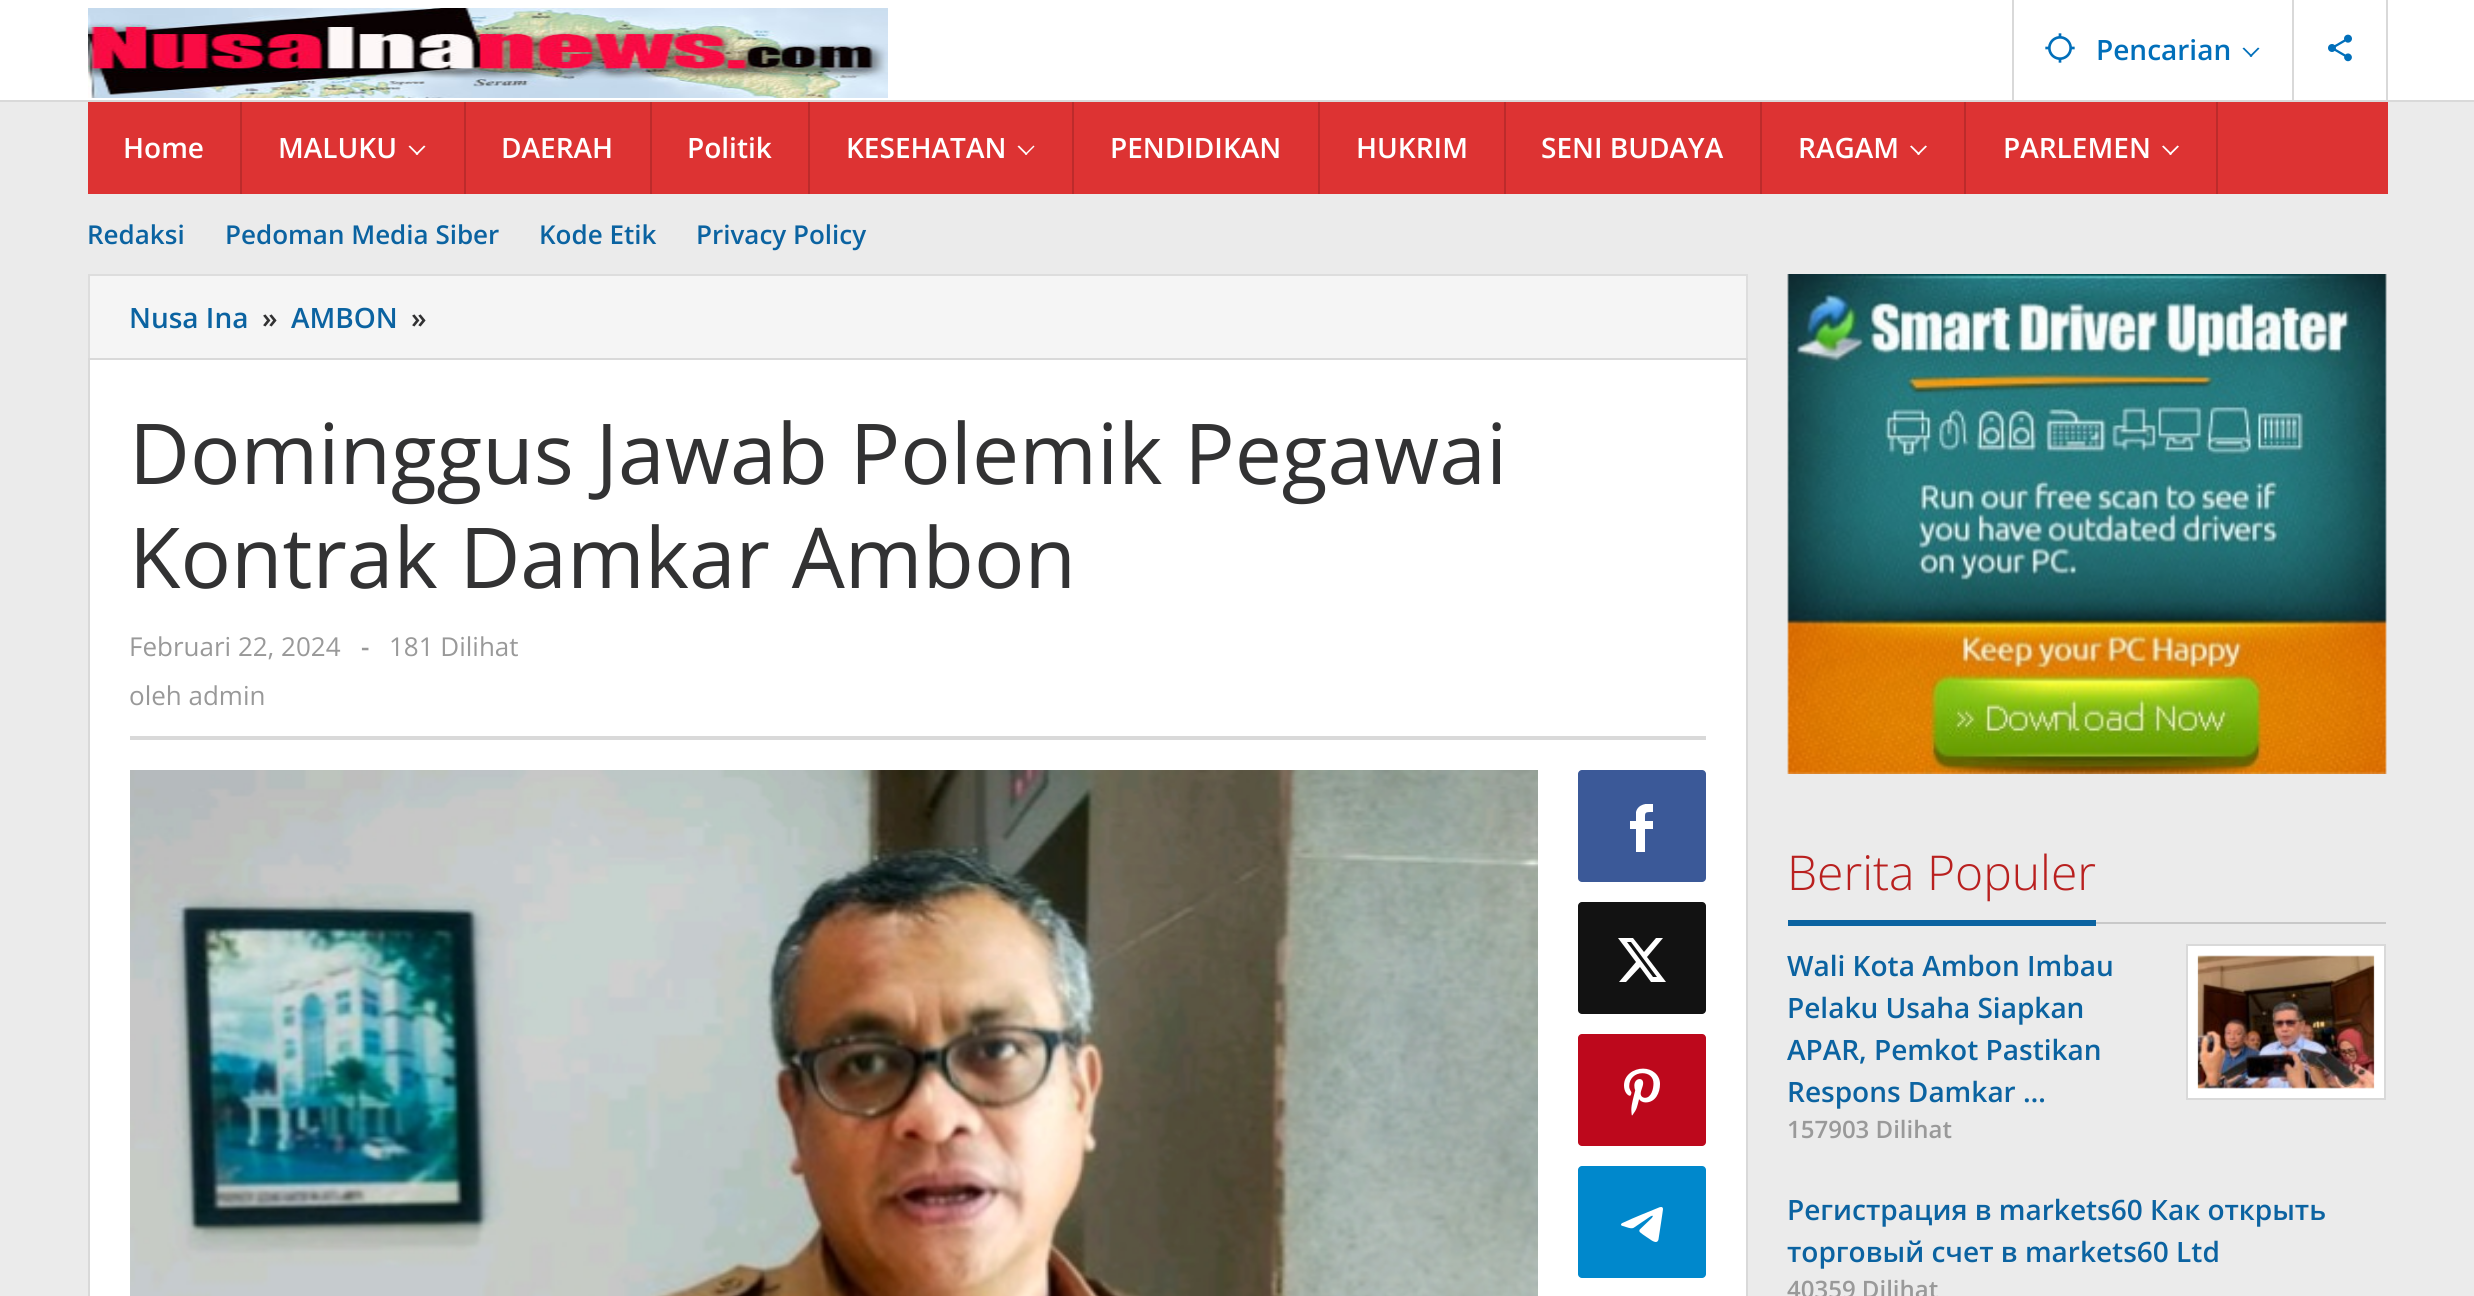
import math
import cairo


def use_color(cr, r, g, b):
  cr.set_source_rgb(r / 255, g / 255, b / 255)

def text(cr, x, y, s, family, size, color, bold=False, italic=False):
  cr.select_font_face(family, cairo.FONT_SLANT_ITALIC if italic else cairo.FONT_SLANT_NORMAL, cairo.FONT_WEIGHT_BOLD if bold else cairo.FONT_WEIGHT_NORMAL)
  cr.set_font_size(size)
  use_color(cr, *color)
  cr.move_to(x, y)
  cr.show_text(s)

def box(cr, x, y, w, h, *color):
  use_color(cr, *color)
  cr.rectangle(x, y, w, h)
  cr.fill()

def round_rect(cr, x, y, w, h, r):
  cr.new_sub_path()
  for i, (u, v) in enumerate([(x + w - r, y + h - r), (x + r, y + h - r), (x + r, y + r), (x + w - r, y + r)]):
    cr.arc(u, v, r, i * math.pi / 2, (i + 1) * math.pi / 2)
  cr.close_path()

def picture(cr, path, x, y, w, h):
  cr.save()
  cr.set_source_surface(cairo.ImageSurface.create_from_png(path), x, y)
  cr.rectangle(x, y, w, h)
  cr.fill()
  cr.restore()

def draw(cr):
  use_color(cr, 235, 235, 235)
  cr.paint()
  box(cr, 0, 0, 2474, 100, 255, 255, 255)
  box(cr, 0, 100, 2474, 2, 217, 217, 217)
  picture(cr, "img_01.png", 88, 8, 800, 90)
  box(cr, 2012, 0, 2, 100, 217, 217, 217)
  box(cr, 2292, 0, 2, 100, 217, 217, 217)
  picture(cr, "img_02.png", 2045, 33, 30, 30)
  use_color(cr, 1, 111, 186)
  cr.new_path()
  cr.move_to(2258, 47.5)
  cr.line_to(2259.5, 48.5)
  cr.line_to(2251, 57)
  cr.line_to(2249.5, 56)
  cr.close_path()
  cr.fill()
  cr.new_path()
  cr.move_to(2244, 47.5)
  cr.line_to(2252.5, 56)
  cr.line_to(2251, 57)
  cr.line_to(2242.5, 48.5)
  cr.close_path()
  cr.fill()
  box(cr, 2386, 0, 2, 100, 217, 217, 217)
  picture(cr, "img_03.png", 2328, 34, 24, 28)
  box(cr, 88, 102, 2300, 92, 221, 51, 51)
  box(cr, 240, 102, 2, 92, 188, 43, 43)
  box(cr, 464, 102, 2, 92, 188, 43, 43)
  use_color(cr, 255, 255, 255)
  cr.new_path()
  cr.move_to(424, 145.5)
  cr.line_to(425.5, 146.5)
  cr.line_to(417, 155)
  cr.line_to(415.5, 154)
  cr.close_path()
  cr.fill()
  cr.new_path()
  cr.move_to(410, 145.5)
  cr.line_to(418.5, 154)
  cr.line_to(417, 155)
  cr.line_to(408.5, 146.5)
  cr.close_path()
  cr.fill()
  box(cr, 650, 102, 2, 92, 188, 43, 43)
  box(cr, 808, 102, 2, 92, 188, 43, 43)
  box(cr, 1072, 102, 2, 92, 188, 43, 43)
  use_color(cr, 255, 255, 255)
  cr.new_path()
  cr.move_to(1033.5, 145.5)
  cr.line_to(1034.5, 146.5)
  cr.line_to(1026, 155)
  cr.line_to(1025, 154)
  cr.close_path()
  cr.fill()
  cr.new_path()
  cr.move_to(1019, 145.5)
  cr.line_to(1027.5, 154)
  cr.line_to(1026, 155)
  cr.line_to(1017.5, 146.5)
  cr.close_path()
  cr.fill()
  box(cr, 1318, 102, 2, 92, 188, 43, 43)
  box(cr, 1504, 102, 2, 92, 188, 43, 43)
  box(cr, 1760, 102, 2, 92, 188, 43, 43)
  box(cr, 1964, 102, 2, 92, 188, 43, 43)
  use_color(cr, 255, 255, 255)
  cr.new_path()
  cr.move_to(1925.5, 145.5)
  cr.line_to(1927, 146.5)
  cr.line_to(1918.5, 155)
  cr.line_to(1917, 154)
  cr.close_path()
  cr.fill()
  cr.new_path()
  cr.move_to(1911.5, 145.5)
  cr.line_to(1920, 154)
  cr.line_to(1918.5, 155)
  cr.line_to(1910, 146.5)
  cr.close_path()
  cr.fill()
  box(cr, 2216, 102, 2, 92, 188, 43, 43)
  use_color(cr, 255, 255, 255)
  cr.new_path()
  cr.move_to(2177.5, 145.5)
  cr.line_to(2179, 146.5)
  cr.line_to(2170.5, 155)
  cr.line_to(2169, 154)
  cr.close_path()
  cr.fill()
  cr.new_path()
  cr.move_to(2163.5, 145.5)
  cr.line_to(2172, 154)
  cr.line_to(2170.5, 155)
  cr.line_to(2162, 146.5)
  cr.close_path()
  cr.fill()
  use_color(cr, 245, 245, 245)
  cr.rectangle(89, 275, 1658, 84)
  cr.fill_preserve()
  use_color(cr, 221, 221, 221)
  cr.stroke()
  use_color(cr, 255, 255, 255)
  cr.rectangle(89, 359, 1658, 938)
  cr.fill_preserve()
  use_color(cr, 217, 217, 217)
  cr.stroke()
  box(cr, 130, 736, 1576, 4, 217, 217, 217)
  picture(cr, "img_04.png", 130, 770, 1408, 526)
  use_color(cr, 59, 89, 152)
  round_rect(cr, 1578, 770, 128, 112, 4)
  cr.fill()
  cr.save()
  cr.rectangle(1630, 804, 24, 48)
  cr.clip()
  use_color(cr, 255, 255, 255)
  cr.new_path()
  cr.move_to(1636, 852)
  cr.line_to(1636, 829)
  cr.line_to(1630, 829)
  cr.line_to(1630, 821)
  cr.line_to(1636, 821)
  cr.line_to(1636, 812)
  cr.curve_to(1638, 804, 1647, 803, 1653, 804)
  cr.line_to(1653, 812)
  cr.curve_to(1644, 812, 1645, 812, 1645, 821)
  cr.line_to(1653, 821)
  cr.line_to(1653, 829)
  cr.line_to(1645, 829)
  cr.line_to(1645, 852)
  cr.line_to(1636, 852)
  cr.fill()
  cr.restore()
  use_color(cr, 18, 18, 18)
  round_rect(cr, 1578, 902, 128, 112, 4)
  cr.fill()
  use_color(cr, 255, 255, 255)
  cr.new_path()
  cr.move_to(1656, 938)
  cr.line_to(1663, 938)
  cr.line_to(1647, 957)
  cr.line_to(1666, 982)
  cr.line_to(1651, 982)
  cr.line_to(1640, 967)
  cr.line_to(1626, 982)
  cr.line_to(1619, 982)
  cr.line_to(1636, 962)
  cr.line_to(1618, 938)
  cr.line_to(1633, 938)
  cr.line_to(1644, 952)
  cr.close_path()
  cr.move_to(1653, 977)
  cr.line_to(1657, 977)
  cr.line_to(1631, 942)
  cr.line_to(1627, 942)
  cr.close_path()
  cr.fill()
  use_color(cr, 189, 8, 28)
  round_rect(cr, 1578, 1034, 128, 112, 4)
  cr.fill()
  picture(cr, "img_05.png", 1624, 1068, 36, 48)
  use_color(cr, 0, 136, 204)
  round_rect(cr, 1578, 1166, 128, 112, 4)
  cr.fill()
  picture(cr, "img_06.png", 1621, 1207, 42, 35)
  picture(cr, "img_07.png", 1787, 274, 600, 500)
  box(cr, 2096, 922, 290, 2, 200, 200, 200)
  box(cr, 1788, 920, 308, 6, 11, 99, 161)
  use_color(cr, 255, 255, 255)
  cr.rectangle(2187, 945, 198, 154)
  cr.fill_preserve()
  use_color(cr, 217, 217, 217)
  cr.stroke()
  picture(cr, "img_08.png", 2197, 955, 178, 134)
  text(cr, 2096, 60, "Pencarian", "Open Sans SemiBold", 28, (1, 111, 186))
  text(cr, 123, 158, "Home", "Open Sans SemiBold", 28, (255, 255, 255))
  text(cr, 278, 158, "MALUKU", "Open Sans SemiBold", 28, (255, 255, 255))
  text(cr, 501, 158, "DAERAH", "Open Sans SemiBold", 28, (255, 255, 255))
  text(cr, 687, 158, "Politik", "Open Sans SemiBold", 28, (255, 255, 255))
  text(cr, 846, 158, "KESEHATAN", "Open Sans SemiBold", 28, (255, 255, 255))
  text(cr, 1110, 158, "PENDIDIKAN", "Open Sans SemiBold", 28, (255, 255, 255))
  text(cr, 1356, 158, "HUKRIM", "Open Sans SemiBold", 28, (255, 255, 255))
  text(cr, 1541, 158, "SENI BUDAYA", "Open Sans SemiBold", 28, (255, 255, 255))
  text(cr, 1798, 158, "RAGAM", "Open Sans SemiBold", 28, (255, 255, 255))
  text(cr, 2003, 158, "PARLEMEN", "Open Sans SemiBold", 28, (255, 255, 255))
  text(cr, 87, 244, "Redaksi", "Open Sans SemiBold", 26, (11, 99, 161))
  text(cr, 225, 244, "Pedoman Media Siber", "Open Sans SemiBold", 26, (11, 99, 161))
  text(cr, 539, 244, "Kode Etik", "Open Sans SemiBold", 26, (11, 99, 161))
  text(cr, 696, 244, "Privacy Policy", "Open Sans SemiBold", 26, (11, 99, 161))
  text(cr, 129, 328, "Nusa Ina", "Open Sans SemiBold", 28, (11, 99, 161))
  text(cr, 262, 328, "»", "Open Sans SemiBold", 28, (50, 50, 51))
  text(cr, 291, 328, "AMBON", "Open Sans SemiBold", 28, (11, 99, 161))
  text(cr, 411, 328, "»", "Open Sans SemiBold", 28, (50, 50, 51))
  text(cr, 129, 484, "Dominggus Jawab Polemik Pegawai", "Open Sans", 84, (50, 50, 51))
  text(cr, 129, 588, "Kontrak Damkar Ambon", "Open Sans", 84, (50, 50, 51))
  text(cr, 129, 656, "Februari 22, 2024", "Open Sans", 26, (153, 153, 153))
  text(cr, 361, 656, "-", "Open Sans SemiBold", 26, (153, 153, 153))
  text(cr, 389, 656, "181 Dilihat", "Open Sans", 26, (153, 153, 153))
  text(cr, 129, 705, "oleh admin", "Open Sans", 26, (153, 153, 153))
  text(cr, 1787, 890, "Berita Populer", "Open Sans Light", 48, (185, 32, 31))
  text(cr, 1787, 976, "Wali Kota Ambon Imbau", "Open Sans SemiBold", 28, (11, 99, 161))
  text(cr, 1787, 1018, "Pelaku Usaha Siapkan", "Open Sans SemiBold", 28, (11, 99, 161))
  text(cr, 1787, 1060, "APAR, Pemkot Pastikan", "Open Sans SemiBold", 28, (11, 99, 161))
  text(cr, 1787, 1102, "Respons Damkar …", "Open Sans SemiBold", 28, (11, 99, 161))
  text(cr, 1787, 1138, "157903 Dilihat", "Open Sans SemiBold", 24, (153, 153, 153))
  text(cr, 1787, 1220, "Регистрация в markets60 Как открыть", "Open Sans SemiBold", 28, (11, 99, 161))
  text(cr, 1787, 1262, "торговый счет в markets60 Ltd", "Open Sans SemiBold", 28, (11, 99, 161))
  text(cr, 1787, 1298, "40359 Dilihat", "Open Sans SemiBold", 24, (153, 153, 153))


surface = cairo.ImageSurface(cairo.FORMAT_RGB24, 2474, 1296)
cr = cairo.Context(surface)
options = cairo.FontOptions()
options.set_hint_metrics(cairo.HINT_METRICS_OFF)
options.set_hint_style(cairo.HINT_STYLE_NONE)
cr.set_font_options(options)
cr.set_miter_limit(4)
draw(cr)
surface.write_to_png("out.png")
